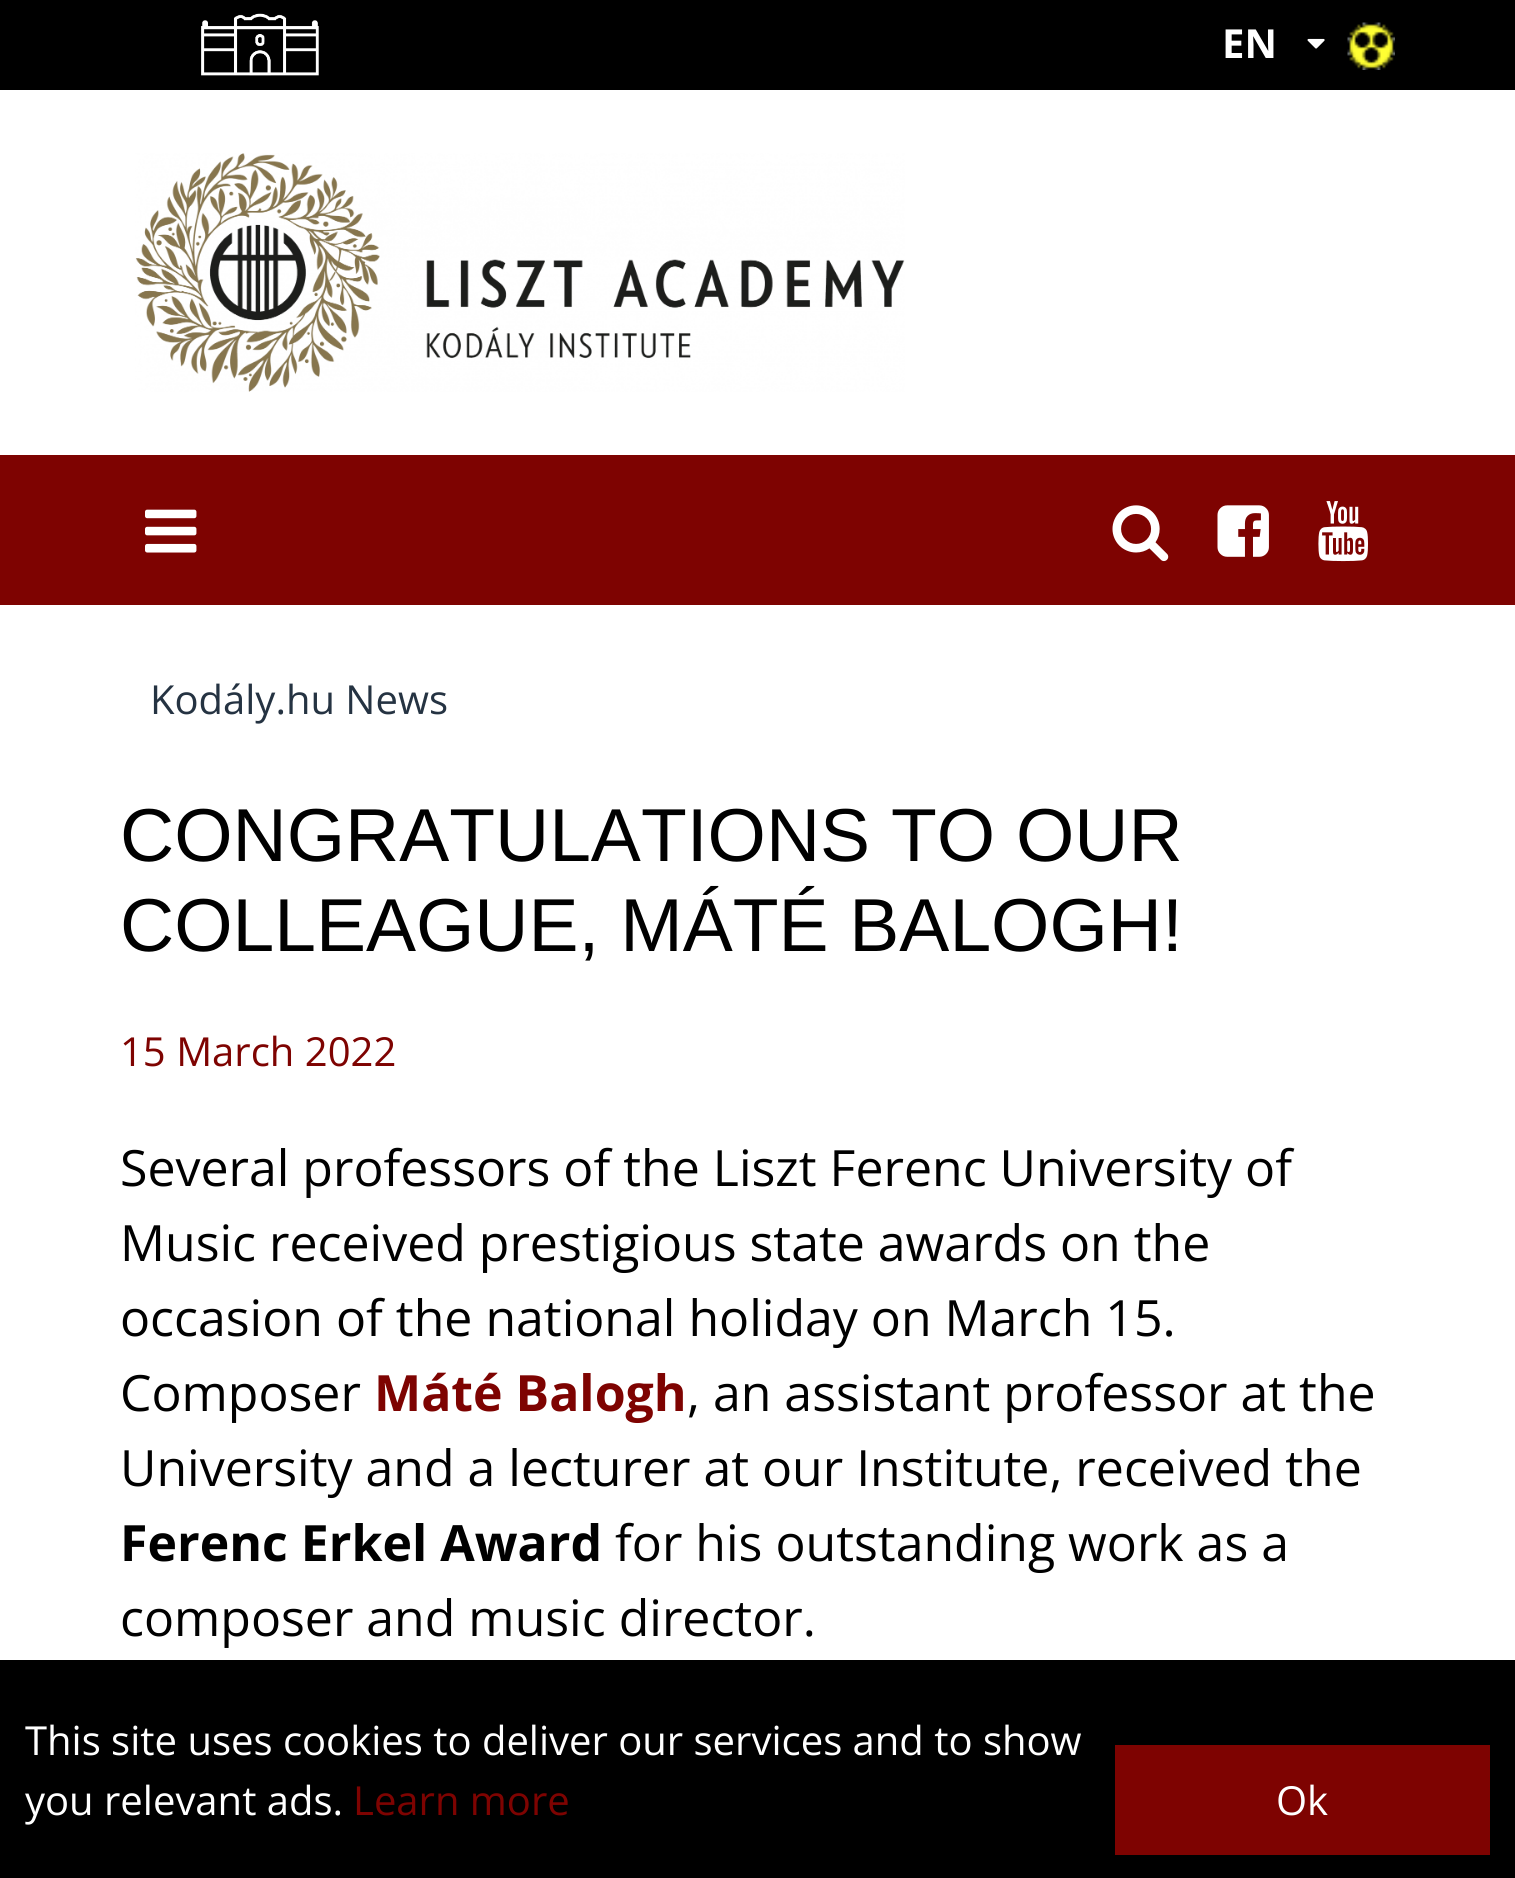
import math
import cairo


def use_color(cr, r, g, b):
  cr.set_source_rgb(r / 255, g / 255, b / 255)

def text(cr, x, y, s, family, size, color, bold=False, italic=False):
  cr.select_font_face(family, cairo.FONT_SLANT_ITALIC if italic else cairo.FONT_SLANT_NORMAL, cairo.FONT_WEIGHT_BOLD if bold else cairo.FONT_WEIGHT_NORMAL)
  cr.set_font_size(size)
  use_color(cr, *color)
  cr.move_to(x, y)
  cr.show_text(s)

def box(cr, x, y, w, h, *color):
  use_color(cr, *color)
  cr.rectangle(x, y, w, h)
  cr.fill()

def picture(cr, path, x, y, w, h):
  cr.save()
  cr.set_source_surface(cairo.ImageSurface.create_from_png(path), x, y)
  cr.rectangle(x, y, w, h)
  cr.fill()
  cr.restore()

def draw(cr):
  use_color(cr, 255, 255, 255)
  cr.paint()
  box(cr, 0, 0, 1515, 90, 0, 0, 0)
  picture(cr, "img_01.png", 201, 13, 118, 63)
  picture(cr, "img_02.png", 1307, 38, 18, 11)
  picture(cr, "img_03.png", 1347, 22, 48, 48)
  picture(cr, "img_04.png", 135, 153, 770, 239)
  box(cr, 0, 455, 1515, 150, 126, 3, 1)
  picture(cr, "img_05.png", 145, 509, 52, 44)
  picture(cr, "img_06.png", 1112, 505, 57, 57)
  picture(cr, "img_07.png", 1217, 505, 52, 52)
  picture(cr, "img_08.png", 1318, 501, 50, 61)
  box(cr, 0, 1660, 1515, 218, 0, 0, 0)
  box(cr, 1115, 1745, 375, 110, 126, 3, 1)
  text(cr, 1222, 58, "EN", "Open Sans", 40, (255, 255, 255), bold=True)
  text(cr, 150, 714, "Kodály.hu News", "Open Sans", 40, (37, 51, 66))
  text(cr, 120, 861, "CONGRATULATIONS TO OUR", "Liberation Sans", 75, (0, 0, 0))
  text(cr, 120, 951, "COLLEAGUE, MÁTÉ BALOGH!", "Liberation Sans", 75, (0, 0, 0))
  text(cr, 120, 1066, "15 March 2022", "Open Sans", 40, (126, 3, 1))
  text(cr, 120, 1186, "Several professors of the Liszt Ferenc University of", "Open Sans", 50, (0, 0, 0))
  text(cr, 120, 1261, "Music received prestigious state awards on the", "Open Sans", 50, (0, 0, 0))
  text(cr, 120, 1336, "occasion of the national holiday on March 15.", "Open Sans", 50, (0, 0, 0))
  text(cr, 120, 1411, "Composer", "Open Sans", 50, (0, 0, 0))
  text(cr, 374, 1411, "Máté Balogh", "Open Sans", 50, (126, 3, 1), bold=True)
  text(cr, 687, 1411, ", an assistant professor at the", "Open Sans", 50, (0, 0, 0))
  text(cr, 120, 1486, "University and a lecturer at our Institute, received the", "Open Sans", 50, (0, 0, 0))
  text(cr, 120, 1561, "Ferenc Erkel Award", "Open Sans", 50, (0, 0, 0), bold=True)
  text(cr, 615, 1561, "for his outstanding work as a", "Open Sans", 50, (0, 0, 0))
  text(cr, 120, 1636, "composer and music director.", "Open Sans", 50, (0, 0, 0))
  text(cr, 25, 1755, "This site uses cookies to deliver our services and to show", "Open Sans", 40, (255, 255, 255))
  text(cr, 25, 1815, "you relevant ads.", "Open Sans", 40, (255, 255, 255))
  text(cr, 353, 1815, "Learn more", "Open Sans", 40, (126, 3, 1))
  text(cr, 1276, 1815, "Ok", "Open Sans", 40, (255, 255, 255))


surface = cairo.ImageSurface(cairo.FORMAT_RGB24, 1515, 1878)
cr = cairo.Context(surface)
options = cairo.FontOptions()
options.set_hint_metrics(cairo.HINT_METRICS_OFF)
options.set_hint_style(cairo.HINT_STYLE_NONE)
cr.set_font_options(options)
cr.set_miter_limit(4)
draw(cr)
surface.write_to_png("out.png")
